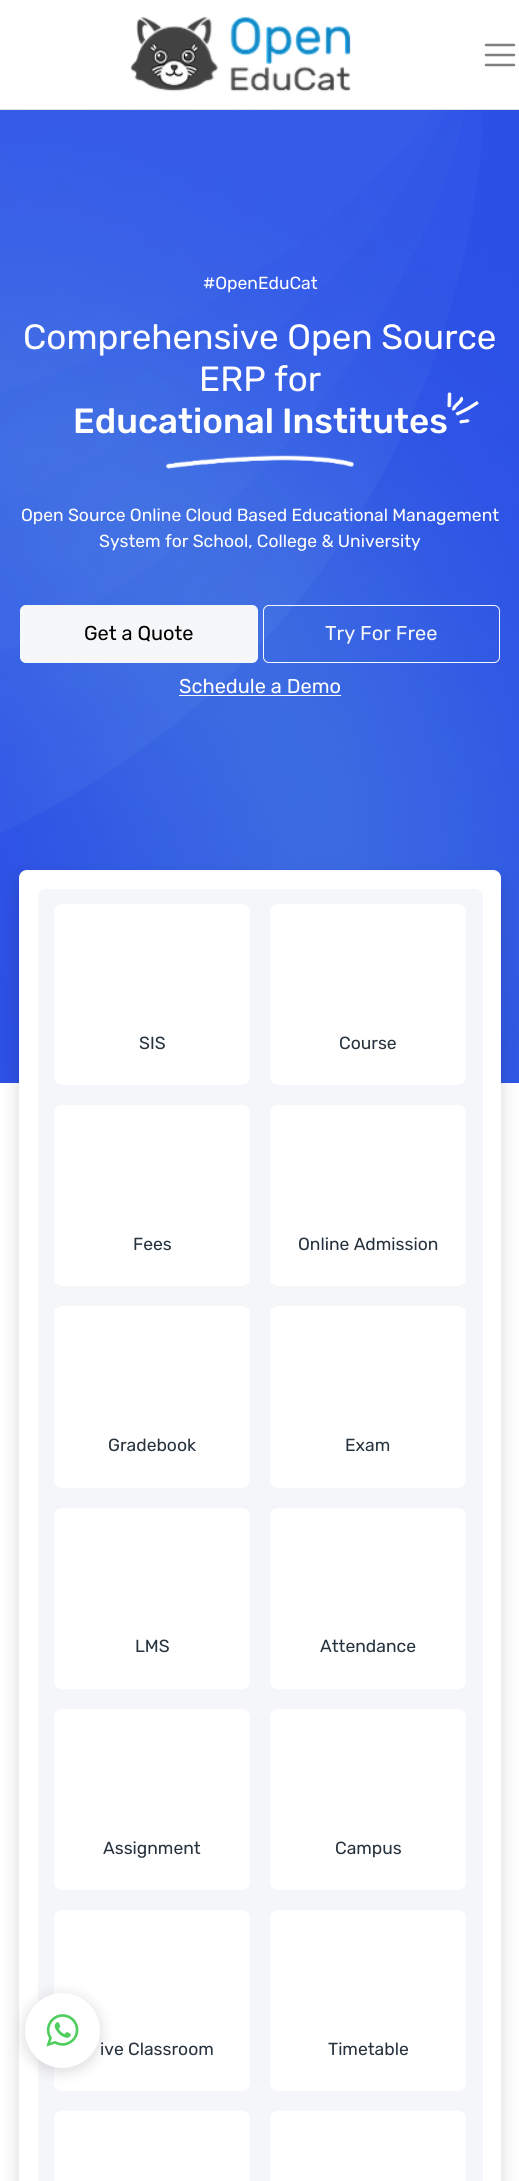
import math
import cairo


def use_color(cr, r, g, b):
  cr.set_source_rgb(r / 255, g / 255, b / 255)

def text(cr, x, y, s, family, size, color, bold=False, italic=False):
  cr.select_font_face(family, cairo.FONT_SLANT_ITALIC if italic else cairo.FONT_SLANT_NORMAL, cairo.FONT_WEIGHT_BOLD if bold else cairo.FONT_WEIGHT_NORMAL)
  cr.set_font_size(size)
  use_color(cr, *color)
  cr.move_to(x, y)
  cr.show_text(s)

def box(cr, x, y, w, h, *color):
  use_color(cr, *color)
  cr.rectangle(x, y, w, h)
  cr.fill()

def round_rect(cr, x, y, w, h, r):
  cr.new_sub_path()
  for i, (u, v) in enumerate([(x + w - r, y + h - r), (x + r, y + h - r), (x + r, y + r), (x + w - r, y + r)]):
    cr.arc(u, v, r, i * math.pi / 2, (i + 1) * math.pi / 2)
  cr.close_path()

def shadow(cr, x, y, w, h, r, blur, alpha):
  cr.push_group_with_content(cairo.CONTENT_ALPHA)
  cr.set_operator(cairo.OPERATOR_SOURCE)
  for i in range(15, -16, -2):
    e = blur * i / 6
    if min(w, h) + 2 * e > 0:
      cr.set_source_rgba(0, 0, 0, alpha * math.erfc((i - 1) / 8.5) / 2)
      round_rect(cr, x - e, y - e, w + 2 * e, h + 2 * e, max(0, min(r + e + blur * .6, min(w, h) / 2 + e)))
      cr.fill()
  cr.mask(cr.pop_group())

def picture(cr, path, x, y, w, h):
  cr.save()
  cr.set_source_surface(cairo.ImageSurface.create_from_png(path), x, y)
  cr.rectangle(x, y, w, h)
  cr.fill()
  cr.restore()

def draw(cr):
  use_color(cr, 255, 255, 255)
  cr.paint()
  box(cr, 0, 109, 519, 1, 222, 226, 230)
  picture(cr, "img_01.png", 130, 16, 221, 76)
  cr.new_path()
  cr.move_to(486, 45)
  cr.line_to(514, 45)
  cr.move_to(486, 55)
  cr.line_to(514, 55)
  cr.move_to(486, 65)
  cr.line_to(514, 65)
  use_color(cr, 128, 128, 128)
  cr.set_line_width(2.5)
  cr.set_line_cap(cairo.LINE_CAP_ROUND)
  cr.stroke()
  box(cr, 0, 1082, 519, 1, 44, 80, 230)
  picture(cr, "img_02.png", 0, 110, 519, 973)
  picture(cr, "img_03.png", 447, 392, 32, 32)
  picture(cr, "img_04.png", 166, 455, 188, 14)
  use_color(cr, 246, 247, 249)
  round_rect(cr, 20.5, 605.5, 237, 57, 5.5)
  cr.fill_preserve()
  cr.set_line_width(1)
  cr.set_line_cap(cairo.LINE_CAP_BUTT)
  cr.stroke()
  round_rect(cr, 263.5, 605.5, 236, 57, 5.5)
  cr.stroke()
  box(cr, 179, 695, 162, 1, 255, 255, 255)
  use_color(cr, 0, 0, 0)
  shadow(cr, 19, 880, 482, 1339, 8, 10, 0.15)
  use_color(cr, 255, 255, 255)
  cr.new_path()
  cr.move_to(27, 870)
  cr.line_to(493, 870)
  cr.curve_to(497.5, 870, 501, 873.5, 501, 878)
  cr.line_to(501, 2181)
  cr.line_to(19, 2181)
  cr.line_to(19, 878)
  cr.curve_to(19, 873.5, 22.5, 870, 27, 870)
  cr.close_path()
  cr.fill()
  use_color(cr, 245, 246, 250)
  cr.new_path()
  cr.move_to(46, 889)
  cr.line_to(475, 889)
  cr.curve_to(479.5, 889, 483, 892.5, 483, 897)
  cr.line_to(483, 2181)
  cr.line_to(38, 2181)
  cr.line_to(38, 897)
  cr.curve_to(38, 892.5, 41.5, 889, 46, 889)
  cr.close_path()
  cr.fill()
  use_color(cr, 255, 255, 255)
  round_rect(cr, 54, 904, 196, 181, 8)
  cr.fill()
  round_rect(cr, 270, 904, 196, 181, 8)
  cr.fill()
  round_rect(cr, 54, 1105, 196, 181, 8)
  cr.fill()
  round_rect(cr, 270, 1105, 196, 181, 8)
  cr.fill()
  round_rect(cr, 54, 1306, 196, 182, 8)
  cr.fill()
  round_rect(cr, 270, 1306, 196, 182, 8)
  cr.fill()
  round_rect(cr, 54, 1508, 196, 181, 8)
  cr.fill()
  round_rect(cr, 270, 1508, 196, 181, 8)
  cr.fill()
  round_rect(cr, 54, 1709, 196, 181, 8)
  cr.fill()
  round_rect(cr, 270, 1709, 196, 181, 8)
  cr.fill()
  round_rect(cr, 54, 1910, 196, 181, 8)
  cr.fill()
  round_rect(cr, 270, 1910, 196, 181, 8)
  cr.fill()
  cr.new_path()
  cr.move_to(62, 2111)
  cr.line_to(242, 2111)
  cr.curve_to(246.5, 2111, 250, 2114.5, 250, 2119)
  cr.line_to(250, 2181)
  cr.line_to(54, 2181)
  cr.line_to(54, 2119)
  cr.curve_to(54, 2114.5, 57.5, 2111, 62, 2111)
  cr.close_path()
  cr.fill()
  cr.new_path()
  cr.move_to(278, 2111)
  cr.line_to(458, 2111)
  cr.curve_to(462.5, 2111, 466, 2114.5, 466, 2119)
  cr.line_to(466, 2181)
  cr.line_to(270, 2181)
  cr.line_to(270, 2119)
  cr.curve_to(270, 2114.5, 273.5, 2111, 278, 2111)
  cr.close_path()
  cr.fill()
  use_color(cr, 0, 0, 0)
  shadow(cr, 25, 1996, 75, 75, 37.5, 7.5, 0.15)
  use_color(cr, 255, 255, 255)
  cr.arc(62.5, 2030.5, 37.5, 0, 2 * math.pi)
  cr.fill()
  picture(cr, "img_05.png", 46, 2014, 33, 33)
  text(cr, 203, 289, "#OpenEduCat", "Rubik", 17.5, (255, 255, 255))
  text(cr, 23, 349, "Comprehensive Open Source", "Rubik", 35, (255, 255, 255))
  text(cr, 199, 391, "ERP for", "Rubik", 35, (255, 255, 255))
  text(cr, 73, 433, "Educational Institutes", "Rubik Medium", 35, (255, 255, 255))
  text(cr, 21, 521, "Open Source Online Cloud Based Educational Management", "Rubik", 17.5, (255, 255, 255))
  text(cr, 99, 547, "System for School, College & University", "Rubik", 17.5, (255, 255, 255))
  text(cr, 84, 640, "Get a Quote", "Rubik", 20, (0, 0, 0))
  text(cr, 325, 640, "Try For Free", "Rubik", 20, (246, 247, 249))
  text(cr, 179, 693, "Schedule a Demo", "Rubik", 20, (255, 255, 255))
  text(cr, 139, 1049, "SIS", "Rubik", 17.5, (38, 50, 61))
  text(cr, 339, 1049, "Course", "Rubik", 17.5, (38, 50, 61))
  text(cr, 133, 1250, "Fees", "Rubik", 17.5, (38, 50, 61))
  text(cr, 298, 1250, "Online Admission", "Rubik", 17.5, (38, 50, 61))
  text(cr, 108, 1451, "Gradebook", "Rubik", 17.5, (38, 50, 61))
  text(cr, 345, 1451, "Exam", "Rubik", 17.5, (38, 50, 61))
  text(cr, 135, 1652, "LMS", "Rubik", 17.5, (38, 50, 61))
  text(cr, 320, 1652, "Attendance", "Rubik", 17.5, (38, 50, 61))
  text(cr, 103, 1854, "Assignment", "Rubik", 17.5, (38, 50, 61))
  text(cr, 335, 1854, "Campus", "Rubik", 17.5, (38, 50, 61))
  text(cr, 100, 2055, "ive Classroom", "Rubik", 17.5, (38, 50, 61))
  text(cr, 328, 2055, "Timetable", "Rubik", 17.5, (38, 50, 61))


surface = cairo.ImageSurface(cairo.FORMAT_RGB24, 519, 2181)
cr = cairo.Context(surface)
options = cairo.FontOptions()
options.set_hint_metrics(cairo.HINT_METRICS_OFF)
options.set_hint_style(cairo.HINT_STYLE_NONE)
cr.set_font_options(options)
cr.set_miter_limit(4)
draw(cr)
surface.write_to_png("out.png")
